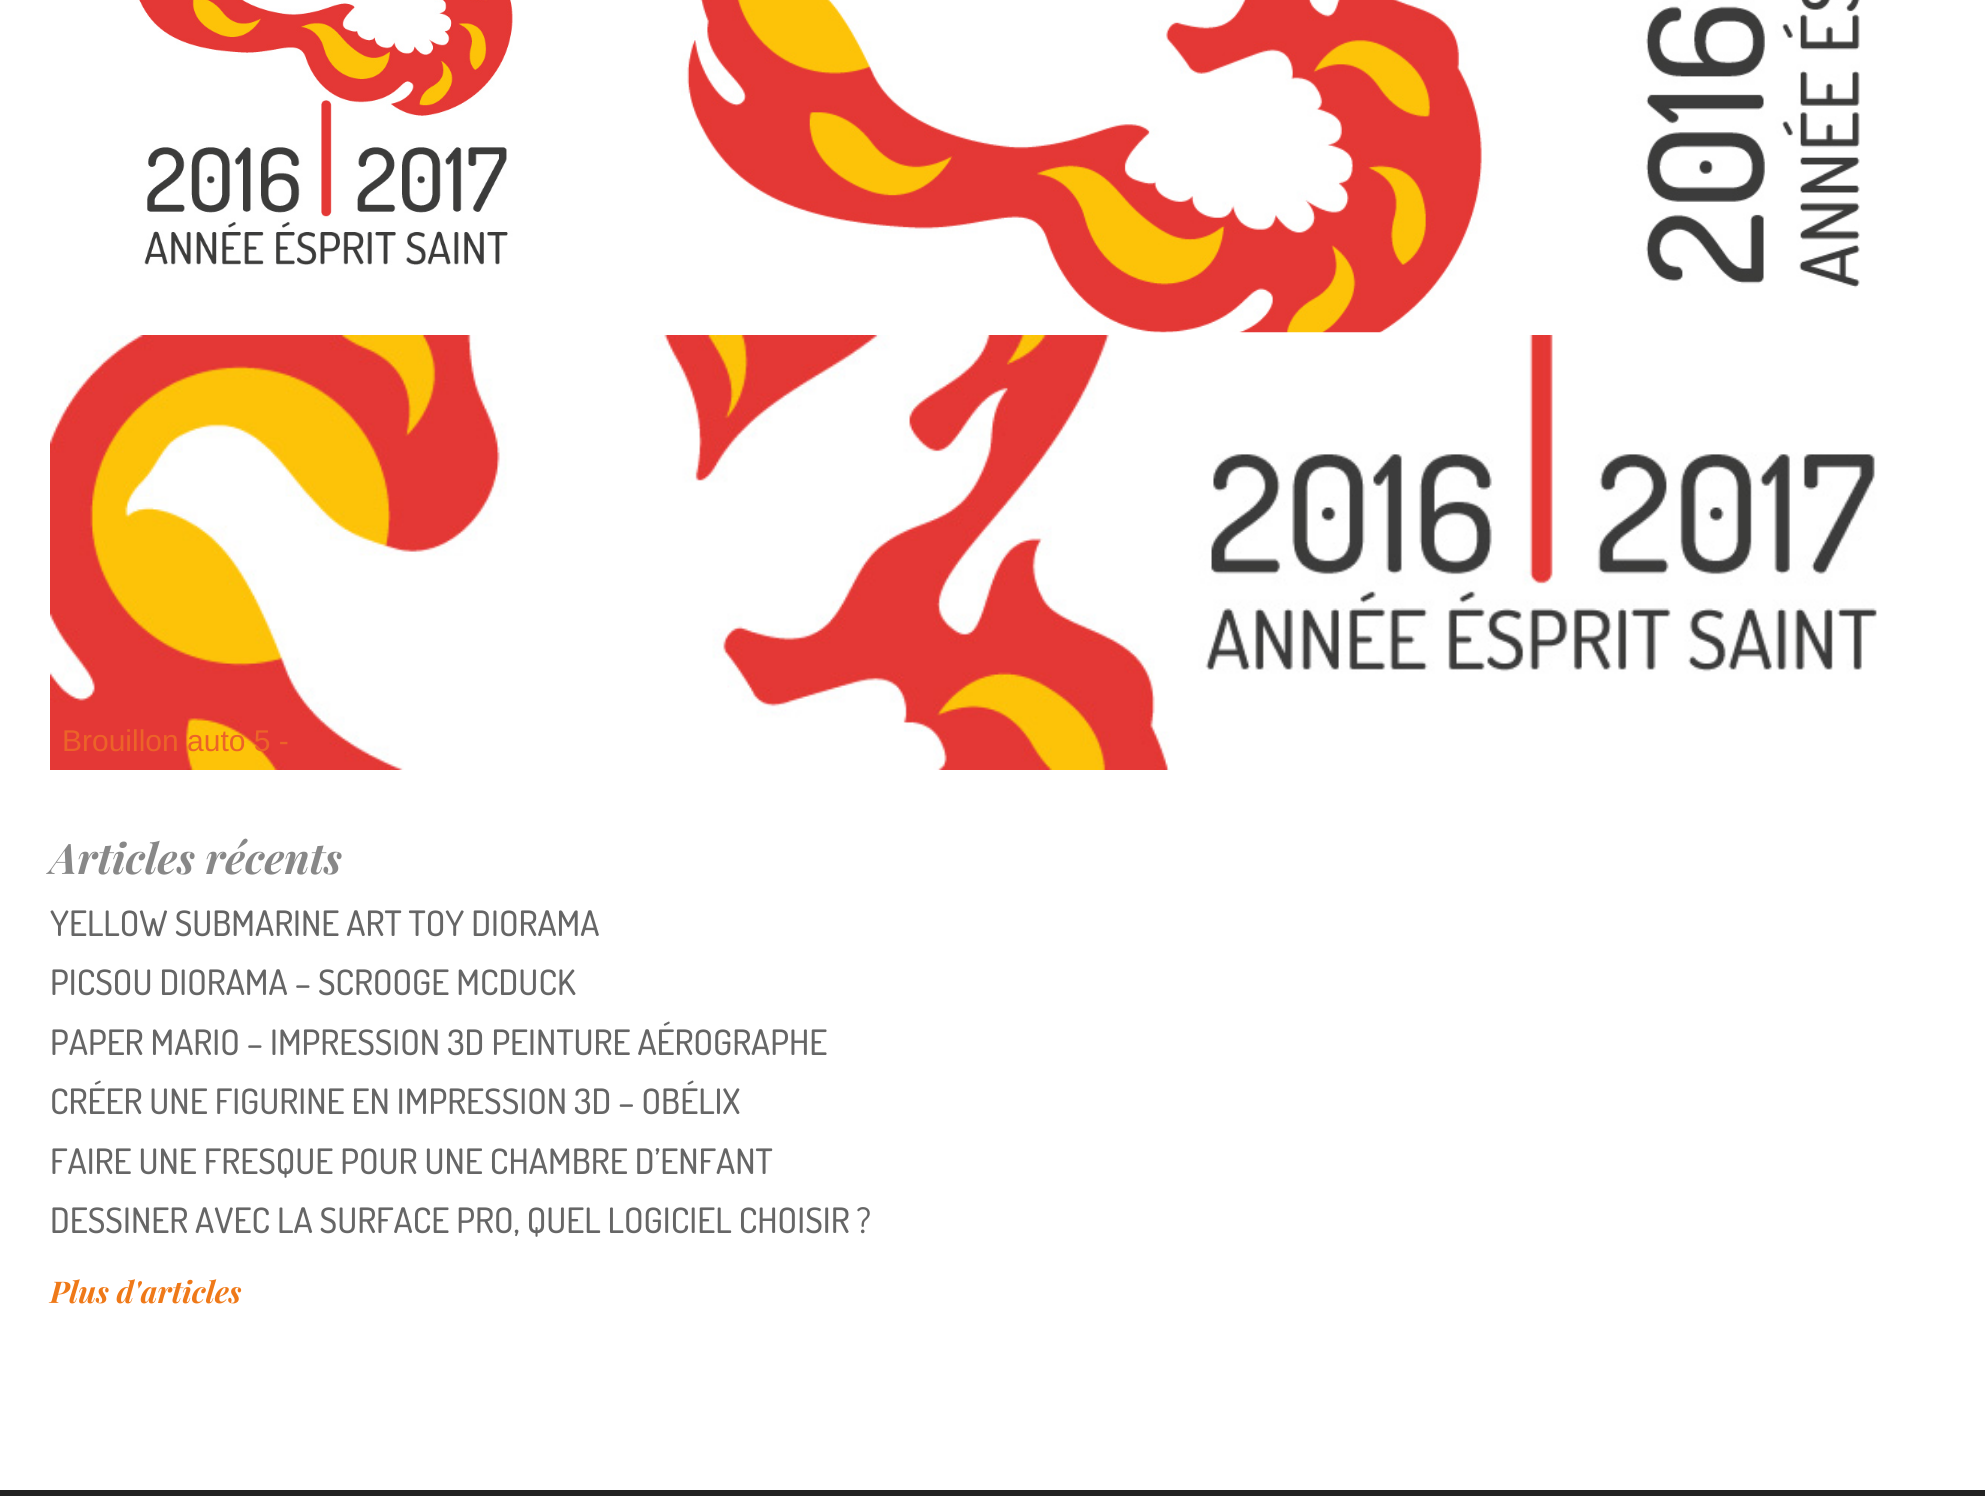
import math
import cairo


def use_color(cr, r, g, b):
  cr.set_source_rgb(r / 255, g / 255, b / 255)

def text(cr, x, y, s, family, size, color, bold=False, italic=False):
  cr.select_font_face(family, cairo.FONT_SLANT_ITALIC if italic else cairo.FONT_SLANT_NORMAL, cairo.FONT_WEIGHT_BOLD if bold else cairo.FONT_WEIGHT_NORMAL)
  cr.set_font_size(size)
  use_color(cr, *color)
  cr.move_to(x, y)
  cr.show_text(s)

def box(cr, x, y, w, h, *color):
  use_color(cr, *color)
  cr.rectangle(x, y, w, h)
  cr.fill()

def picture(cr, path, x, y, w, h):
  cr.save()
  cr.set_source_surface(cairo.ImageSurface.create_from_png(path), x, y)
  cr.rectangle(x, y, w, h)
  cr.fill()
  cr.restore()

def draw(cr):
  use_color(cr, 34, 34, 34)
  cr.paint()
  box(cr, 0, 0, 1985, 1490, 255, 255, 255)
  picture(cr, "img_01.png", 136, 0, 377, 265)
  picture(cr, "img_02.png", 681, 0, 1179, 333)
  picture(cr, "img_03.png", 50, 335, 1827, 435)
  text(cr, 62, 751, "Brouillon auto 5 -", "Liberation Sans", 30, (236, 99, 40))
  text(cr, 50, 874, "Articles récents", "Playfair Display", 42, (136, 136, 136), bold=True, italic=True)
  text(cr, 50, 936, "YELLOW SUBMARINE ART TOY DIORAMA", "Dosis Medium", 35, (102, 102, 102))
  text(cr, 50, 995, "PICSOU DIORAMA – SCROOGE MCDUCK", "Dosis Medium", 35, (102, 102, 102))
  text(cr, 50, 1055, "PAPER MARIO – IMPRESSION 3D PEINTURE AÉROGRAPHE", "Dosis Medium", 35, (102, 102, 102))
  text(cr, 50, 1114, "CRÉER UNE FIGURINE EN IMPRESSION 3D – OBÉLIX", "Dosis Medium", 35, (102, 102, 102))
  text(cr, 50, 1174, "FAIRE UNE FRESQUE POUR UNE CHAMBRE D’ENFANT", "Dosis Medium", 35, (102, 102, 102))
  text(cr, 50, 1233, "DESSINER AVEC LA SURFACE PRO, QUEL LOGICIEL CHOISIR ?", "Dosis Medium", 35, (102, 102, 102))
  text(cr, 50, 1303, "Plus d'articles", "Playfair Display", 30, (239, 121, 24), bold=True, italic=True)


surface = cairo.ImageSurface(cairo.FORMAT_RGB24, 1985, 1496)
cr = cairo.Context(surface)
options = cairo.FontOptions()
options.set_hint_metrics(cairo.HINT_METRICS_OFF)
options.set_hint_style(cairo.HINT_STYLE_NONE)
cr.set_font_options(options)
cr.set_miter_limit(4)
draw(cr)
surface.write_to_png("out.png")
